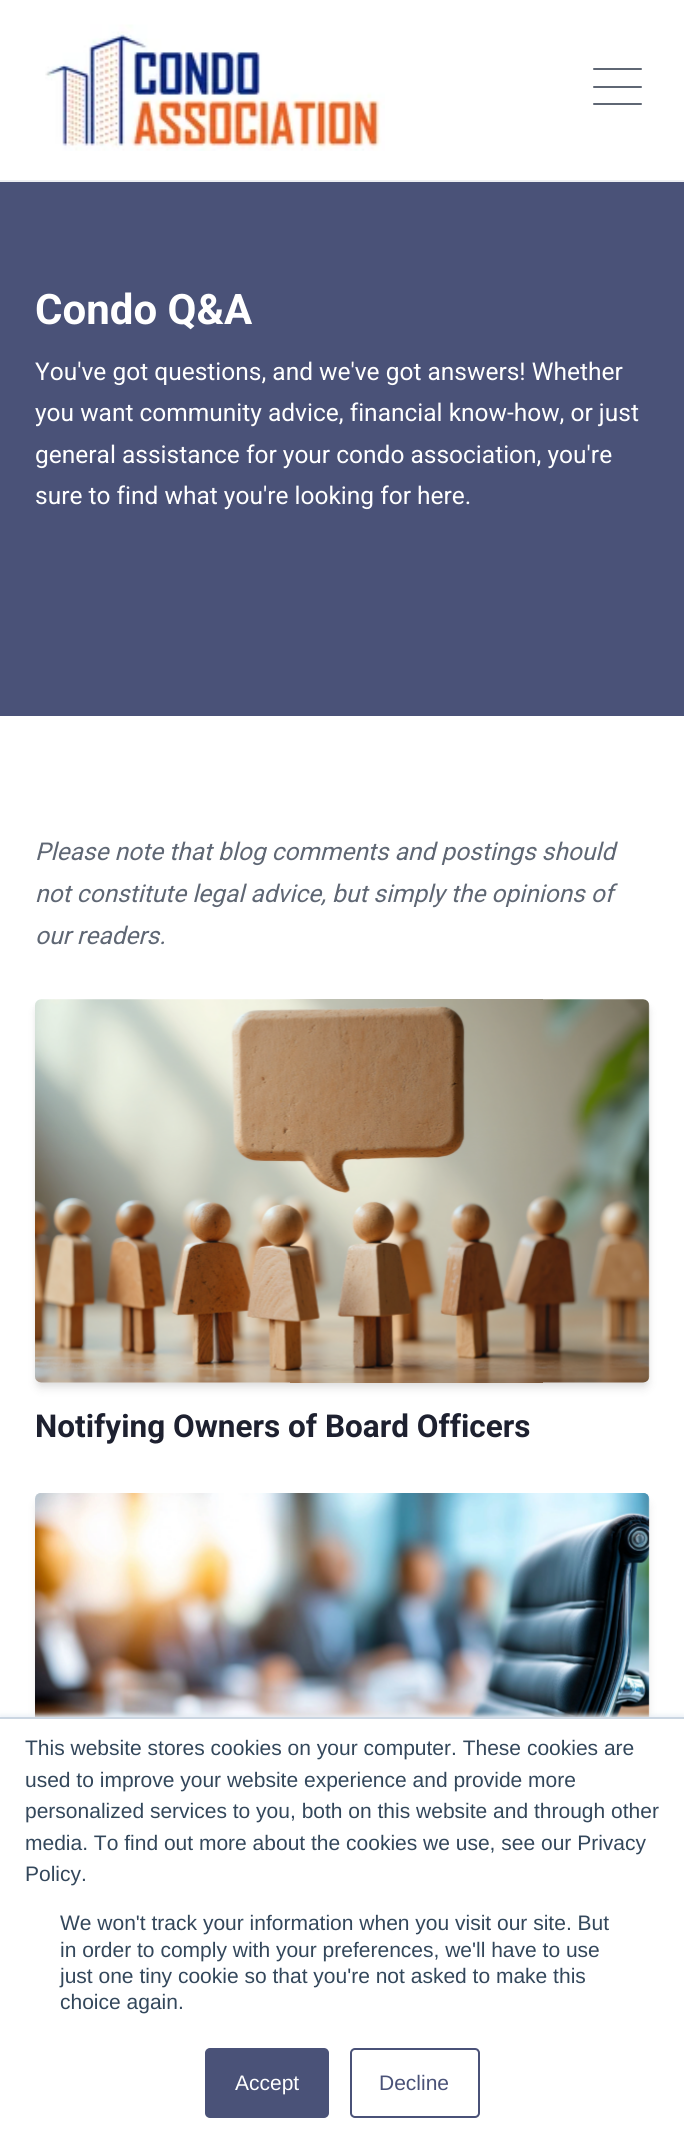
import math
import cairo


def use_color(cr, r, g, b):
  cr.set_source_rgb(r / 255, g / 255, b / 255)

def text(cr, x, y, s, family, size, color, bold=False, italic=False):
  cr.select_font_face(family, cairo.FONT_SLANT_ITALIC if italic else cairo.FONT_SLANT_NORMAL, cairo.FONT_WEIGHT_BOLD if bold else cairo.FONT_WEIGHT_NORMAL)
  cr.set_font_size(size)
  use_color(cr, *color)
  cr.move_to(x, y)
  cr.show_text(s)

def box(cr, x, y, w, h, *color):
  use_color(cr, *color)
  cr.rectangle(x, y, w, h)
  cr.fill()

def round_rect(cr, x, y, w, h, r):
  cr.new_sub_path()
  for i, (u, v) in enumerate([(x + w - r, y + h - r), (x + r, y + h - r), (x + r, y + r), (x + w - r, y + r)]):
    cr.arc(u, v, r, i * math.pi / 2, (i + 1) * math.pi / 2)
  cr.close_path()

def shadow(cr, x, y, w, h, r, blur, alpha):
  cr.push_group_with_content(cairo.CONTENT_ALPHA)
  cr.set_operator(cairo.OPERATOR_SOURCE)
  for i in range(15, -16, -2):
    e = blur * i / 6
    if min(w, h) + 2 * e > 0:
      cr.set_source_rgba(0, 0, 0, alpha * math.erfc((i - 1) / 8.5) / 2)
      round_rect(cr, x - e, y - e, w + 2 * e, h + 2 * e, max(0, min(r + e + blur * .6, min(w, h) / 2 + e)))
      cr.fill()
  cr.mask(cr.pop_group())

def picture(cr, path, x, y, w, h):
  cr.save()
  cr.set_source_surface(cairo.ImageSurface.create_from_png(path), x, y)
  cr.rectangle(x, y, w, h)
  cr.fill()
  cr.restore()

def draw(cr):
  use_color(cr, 255, 255, 255)
  cr.paint()
  box(cr, 0, 180, 684, 2, 237, 238, 242)
  picture(cr, "img_01.png", 45, 24, 340, 127)
  use_color(cr, 95, 103, 116)
  round_rect(cr, 593, 86, 49, 2, 1)
  cr.fill()
  round_rect(cr, 593, 68, 49, 2, 1)
  cr.fill()
  round_rect(cr, 593, 103, 49, 2, 1)
  cr.fill()
  box(cr, 0, 182, 684, 534, 74, 82, 120)
  use_color(cr, 0, 0, 0)
  shadow(cr, 37, 1005, 611, 379, 4, 3.5, 0.06)
  shadow(cr, 37, 1008, 611, 380, 4, 5, 0.1)
  picture(cr, "img_02.png", 35, 999, 615, 384)
  shadow(cr, 37, 1502, 611, 379, 4, 5, 0.1)
  picture(cr, "img_03.png", 35, 1493, 615, 224)
  use_color(cr, 234, 240, 246)
  shadow(cr, 0, 1715, 684, 436, 0, 2.5, 1)
  box(cr, 0, 1719, 684, 433, 255, 255, 255)
  box(cr, 0, 1717, 684, 2, 203, 214, 226)
  use_color(cr, 74, 82, 120)
  round_rect(cr, 206, 2049, 122, 68, 4)
  cr.fill_preserve()
  cr.stroke()
  round_rect(cr, 351, 2049, 128, 68, 4)
  cr.stroke()
  text(cr, 35, 324, "Condo Q&A", "Roboto", 42, (255, 255, 255), bold=True)
  text(cr, 35, 380, "You've got questions, and we've got answers! Whether", "Roboto", 24.5, (255, 255, 255))
  text(cr, 35, 421, "you want community advice, financial know-how, or just", "Roboto", 24.5, (255, 255, 255))
  text(cr, 35, 463, "general assistance for your condo association, you're", "Roboto", 24.5, (255, 255, 255))
  text(cr, 35, 504, "sure to find what you're looking for here.", "Roboto", 24.5, (255, 255, 255))
  text(cr, 35, 860, "Please note that blog comments and postings should", "Roboto", 24.5, (95, 103, 116), italic=True)
  text(cr, 35, 902, "not constitute legal advice, but simply the opinions of", "Roboto", 24.5, (95, 103, 116), italic=True)
  text(cr, 35, 944, "our readers.", "Roboto", 24.5, (95, 103, 116), italic=True)
  text(cr, 35, 1437, "Notifying Owners of Board Officers", "Roboto", 31.5, (30, 33, 48), bold=True)
  text(cr, 25, 1755, "This website stores cookies on your computer. These cookies are", "Liberation Sans", 21, (51, 71, 91))
  text(cr, 25, 1787, "used to improve your website experience and provide more", "Liberation Sans", 21, (51, 71, 91))
  text(cr, 25, 1818, "personalized services to you, both on this website and through other", "Liberation Sans", 21, (51, 71, 91))
  text(cr, 25, 1850, "media. To find out more about the cookies we use, see our Privacy", "Liberation Sans", 21, (51, 71, 91))
  text(cr, 25, 1881, "Policy.", "Liberation Sans", 21, (51, 71, 91))
  text(cr, 60, 1930, "We won't track your information when you visit our site. But", "Liberation Sans", 21, (51, 71, 91))
  text(cr, 60, 1957, "in order to comply with your preferences, we'll have to use", "Liberation Sans", 21, (51, 71, 91))
  text(cr, 60, 1983, "just one tiny cookie so that you're not asked to make this", "Liberation Sans", 21, (51, 71, 91))
  text(cr, 60, 2009, "choice again.", "Liberation Sans", 21, (51, 71, 91))
  text(cr, 235, 2090, "Accept", "Liberation Sans", 21, (255, 255, 255))
  text(cr, 379, 2090, "Decline", "Liberation Sans", 21, (74, 82, 120))


surface = cairo.ImageSurface(cairo.FORMAT_RGB24, 684, 2152)
cr = cairo.Context(surface)
options = cairo.FontOptions()
options.set_hint_metrics(cairo.HINT_METRICS_OFF)
options.set_hint_style(cairo.HINT_STYLE_NONE)
cr.set_font_options(options)
cr.set_miter_limit(4)
draw(cr)
surface.write_to_png("out.png")
